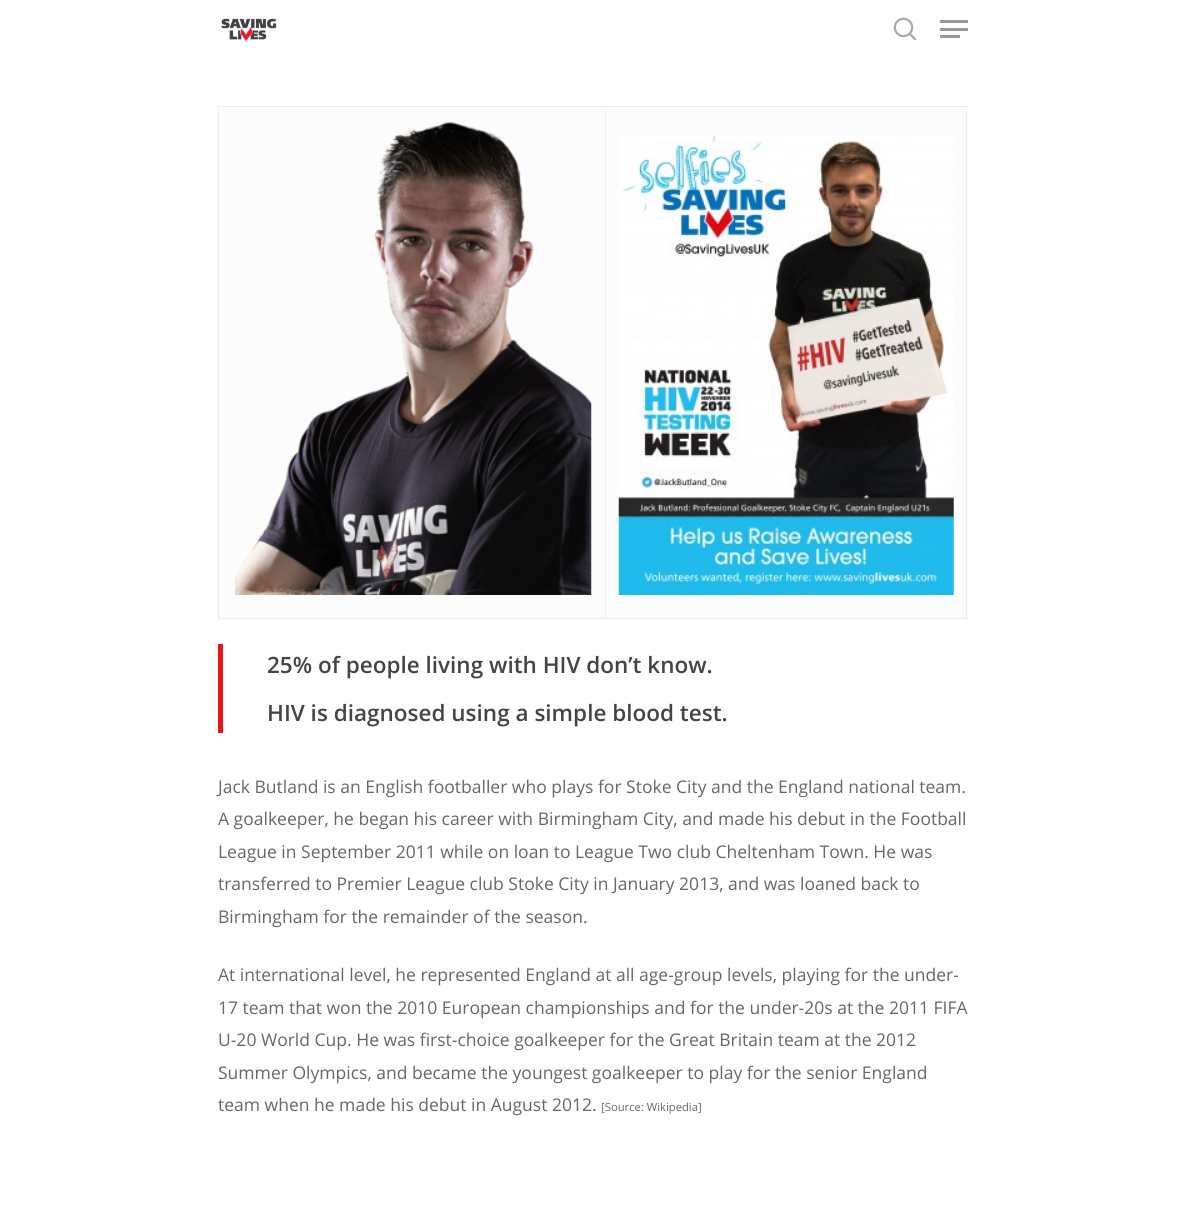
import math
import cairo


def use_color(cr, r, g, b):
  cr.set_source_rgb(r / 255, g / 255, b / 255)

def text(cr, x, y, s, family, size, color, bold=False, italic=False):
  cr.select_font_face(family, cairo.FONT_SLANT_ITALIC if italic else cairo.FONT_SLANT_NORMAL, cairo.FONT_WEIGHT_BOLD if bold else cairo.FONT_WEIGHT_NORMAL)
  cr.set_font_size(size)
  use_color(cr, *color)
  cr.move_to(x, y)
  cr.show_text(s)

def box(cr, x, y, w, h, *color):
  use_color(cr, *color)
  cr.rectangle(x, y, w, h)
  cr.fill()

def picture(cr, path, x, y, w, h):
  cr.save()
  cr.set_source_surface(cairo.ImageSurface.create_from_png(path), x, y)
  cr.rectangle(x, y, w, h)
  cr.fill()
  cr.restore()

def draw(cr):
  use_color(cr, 255, 255, 255)
  cr.paint()
  picture(cr, "img_01.png", 221, 18, 56, 24)
  picture(cr, "img_02.png", 893, 17, 24, 24)
  box(cr, 940, 20, 28, 3, 153, 153, 153)
  box(cr, 940, 35, 20, 3, 153, 153, 153)
  box(cr, 940, 28, 28, 3, 153, 153, 153)
  box(cr, 218, 106, 750, 1, 236, 236, 236)
  box(cr, 219, 108, 749, 510, 252, 252, 252)
  box(cr, 966, 106, 1, 513, 236, 236, 236)
  box(cr, 605, 618, 363, 1, 236, 236, 236)
  box(cr, 605, 106, 1, 513, 236, 236, 236)
  box(cr, 218, 618, 388, 1, 236, 236, 236)
  box(cr, 218, 106, 1, 513, 236, 236, 236)
  picture(cr, "img_03.png", 235, 121, 357, 474)
  picture(cr, "img_04.png", 618, 135, 336, 460)
  box(cr, 218, 644, 5, 89, 239, 19, 19)
  text(cr, 267, 673, "25% of people living with HIV don’t know.", "Open Sans SemiBold", 22.5, (68, 68, 68))
  text(cr, 267, 721, "HIV is diagnosed using a simple blood test.", "Open Sans SemiBold", 22.5, (68, 68, 68))
  text(cr, 218, 793, "Jack Butland is an English footballer who plays for Stoke City and the England national team.", "Open Sans", 17.5, (103, 103, 103))
  text(cr, 218, 825, "A goalkeeper, he began his career with Birmingham City, and made his debut in the Football", "Open Sans", 17.5, (103, 103, 103))
  text(cr, 218, 858, "League in September 2011 while on loan to League Two club Cheltenham Town. He was", "Open Sans", 17.5, (103, 103, 103))
  text(cr, 218, 890, "transferred to Premier League club Stoke City in January 2013, and was loaned back to", "Open Sans", 17.5, (103, 103, 103))
  text(cr, 218, 923, "Birmingham for the remainder of the season.", "Open Sans", 17.5, (103, 103, 103))
  text(cr, 218, 981, "At international level, he represented England at all age-group levels, playing for the under-", "Open Sans", 17.5, (103, 103, 103))
  text(cr, 218, 1014, "17 team that won the 2010 European championships and for the under-20s at the 2011 FIFA", "Open Sans", 17.5, (103, 103, 103))
  text(cr, 218, 1046, "U-20 World Cup. He was first-choice goalkeeper for the Great Britain team at the 2012", "Open Sans", 17.5, (103, 103, 103))
  text(cr, 218, 1079, "Summer Olympics, and became the youngest goalkeeper to play for the senior England", "Open Sans", 17.5, (103, 103, 103))
  text(cr, 218, 1111, "team when he made his debut in August 2012.", "Open Sans", 17.5, (103, 103, 103))
  text(cr, 601, 1111, "[Source: Wikipedia]", "Open Sans", 11.25, (103, 103, 103))


surface = cairo.ImageSurface(cairo.FORMAT_RGB24, 1185, 1218)
cr = cairo.Context(surface)
options = cairo.FontOptions()
options.set_hint_metrics(cairo.HINT_METRICS_OFF)
options.set_hint_style(cairo.HINT_STYLE_NONE)
cr.set_font_options(options)
cr.set_miter_limit(4)
draw(cr)
surface.write_to_png("out.png")
